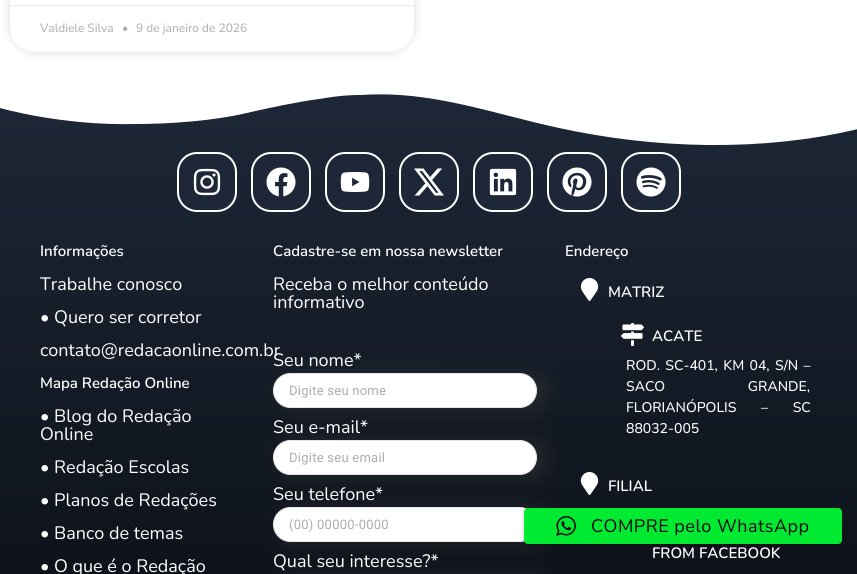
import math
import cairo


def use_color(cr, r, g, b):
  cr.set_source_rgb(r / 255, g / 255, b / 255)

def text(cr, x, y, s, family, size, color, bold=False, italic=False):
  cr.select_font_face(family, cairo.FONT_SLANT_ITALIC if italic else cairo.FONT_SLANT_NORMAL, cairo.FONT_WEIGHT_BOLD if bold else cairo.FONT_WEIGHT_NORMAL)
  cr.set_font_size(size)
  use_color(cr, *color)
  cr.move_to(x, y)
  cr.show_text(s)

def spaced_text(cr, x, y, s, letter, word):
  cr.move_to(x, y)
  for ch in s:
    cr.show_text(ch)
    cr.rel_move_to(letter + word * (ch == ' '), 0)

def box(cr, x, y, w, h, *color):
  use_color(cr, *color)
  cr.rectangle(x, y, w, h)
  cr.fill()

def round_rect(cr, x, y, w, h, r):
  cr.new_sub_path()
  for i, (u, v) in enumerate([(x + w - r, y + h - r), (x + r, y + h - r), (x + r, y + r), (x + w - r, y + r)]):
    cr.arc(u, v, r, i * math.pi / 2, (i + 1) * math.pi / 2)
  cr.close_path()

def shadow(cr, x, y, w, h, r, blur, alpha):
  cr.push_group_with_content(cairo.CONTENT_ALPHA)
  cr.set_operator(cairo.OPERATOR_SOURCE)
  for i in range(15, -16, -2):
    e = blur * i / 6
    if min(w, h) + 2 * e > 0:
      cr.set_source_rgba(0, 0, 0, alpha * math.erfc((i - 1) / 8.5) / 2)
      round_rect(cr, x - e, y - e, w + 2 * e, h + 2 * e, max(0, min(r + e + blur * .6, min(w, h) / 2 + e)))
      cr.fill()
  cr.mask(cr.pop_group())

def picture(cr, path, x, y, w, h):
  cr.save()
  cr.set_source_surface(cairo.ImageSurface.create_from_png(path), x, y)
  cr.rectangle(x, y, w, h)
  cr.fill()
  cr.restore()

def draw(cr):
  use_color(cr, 255, 255, 255)
  cr.paint()
  use_color(cr, 0, 0, 0)
  shadow(cr, 10, -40, 404, 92, 25, 5, 0.15)
  use_color(cr, 255, 255, 255)
  round_rect(cr, 10, -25, 404, 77, 25)
  cr.fill()
  box(cr, 10, 5, 404, 1, 234, 234, 234)
  gradient = cairo.LinearGradient(428, 92, 429, 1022)
  gradient.add_color_stop_rgba(0, 0.114, 0.153, 0.216, 1)
  gradient.add_color_stop_rgba(1, 0, 0, 0, 1)
  cr.set_source(gradient)
  cr.rectangle(0, 94, 857, 480)
  cr.fill()
  use_color(cr, 255, 255, 255)
  cr.new_path()
  cr.move_to(362, 95)
  cr.curve_to(430, 90, 494, 114, 559, 128)
  cr.curve_to(655, 149, 762, 152, 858, 129)
  cr.line_to(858, 91)
  cr.line_to(0, 91)
  cr.line_to(0, 108)
  cr.curve_to(0, 108, 62, 126, 136, 124)
  cr.curve_to(169, 124, 215, 121, 251, 112)
  cr.curve_to(269, 108, 296, 102, 319, 99)
  cr.curve_to(343, 95, 353, 95, 362, 95)
  cr.close_path()
  cr.fill()
  use_color(cr, 29, 39, 55)
  round_rect(cr, 178, 153, 58, 58, 19)
  cr.fill_preserve()
  use_color(cr, 255, 255, 255)
  cr.stroke()
  picture(cr, "img_01.png", 193, 168, 28, 28)
  use_color(cr, 29, 39, 55)
  round_rect(cr, 252, 153, 58, 58, 19)
  cr.fill_preserve()
  use_color(cr, 255, 255, 255)
  cr.stroke()
  picture(cr, "img_02.png", 266, 167, 30, 30)
  use_color(cr, 29, 39, 55)
  round_rect(cr, 326, 153, 58, 58, 19)
  cr.fill_preserve()
  use_color(cr, 255, 255, 255)
  cr.stroke()
  picture(cr, "img_03.png", 340, 172, 30, 20)
  use_color(cr, 29, 39, 55)
  round_rect(cr, 400, 153, 58, 58, 19)
  cr.fill_preserve()
  use_color(cr, 255, 255, 255)
  cr.stroke()
  picture(cr, "img_04.png", 414, 168, 30, 28)
  use_color(cr, 29, 39, 55)
  round_rect(cr, 474, 153, 58, 58, 19)
  cr.fill_preserve()
  use_color(cr, 255, 255, 255)
  cr.stroke()
  picture(cr, "img_05.png", 489, 168, 28, 28)
  use_color(cr, 29, 39, 55)
  round_rect(cr, 548, 153, 58, 58, 19)
  cr.fill_preserve()
  use_color(cr, 255, 255, 255)
  cr.stroke()
  picture(cr, "img_06.png", 562, 167, 30, 30)
  use_color(cr, 29, 39, 55)
  round_rect(cr, 622, 153, 58, 58, 19)
  cr.fill_preserve()
  use_color(cr, 255, 255, 255)
  cr.stroke()
  picture(cr, "img_07.png", 636, 167, 30, 30)
  use_color(cr, 57, 57, 57)
  shadow(cr, 281, 375, 264, 35, 17.5, 10.5, 0.5)
  use_color(cr, 255, 255, 255)
  round_rect(cr, 273.5, 373.5, 263, 34, 17)
  cr.fill_preserve()
  use_color(cr, 232, 232, 232)
  cr.set_line_width(1)
  cr.stroke()
  use_color(cr, 57, 57, 57)
  shadow(cr, 281, 442, 264, 35, 17.5, 10.5, 0.5)
  use_color(cr, 255, 255, 255)
  round_rect(cr, 273.5, 440.5, 263, 34, 17)
  cr.fill_preserve()
  use_color(cr, 232, 232, 232)
  cr.stroke()
  use_color(cr, 57, 57, 57)
  shadow(cr, 281, 509, 264, 35, 17.5, 10.5, 0.5)
  use_color(cr, 255, 255, 255)
  round_rect(cr, 273.5, 507.5, 263, 34, 17)
  cr.fill_preserve()
  use_color(cr, 232, 232, 232)
  cr.stroke()
  use_color(cr, 57, 57, 57)
  shadow(cr, 281, 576, 264, 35, 17.5, 10.5, 0.5)
  picture(cr, "img_08.png", 580, 278, 19, 23)
  picture(cr, "img_09.png", 621, 323, 23, 23)
  picture(cr, "img_10.png", 580, 472, 19, 23)
  use_color(cr, 0, 0, 0)
  shadow(cr, 526, 513, 314, 32, 2, 0.5, 0.2)
  shadow(cr, 524, 509, 318, 36, 4, 2.5, 0.12)
  shadow(cr, 524, 510, 318, 36, 4, 1, 0.14)
  use_color(cr, 0, 234, 50)
  round_rect(cr, 524, 508, 318, 36, 4)
  cr.fill()
  picture(cr, "img_11.png", 556, 516, 20, 20)
  text(cr, 40, 32, "Valdiele Silva", "Nunito Sans", 12, (173, 173, 173))
  text(cr, 122, 32, "•", "Nunito Sans", 12, (173, 173, 173))
  text(cr, 136, 32, "9 de janeiro de 2026", "Nunito Sans", 12, (173, 173, 173))
  text(cr, 40, 256, "Informações", "Nunito SemiBold", 15, (255, 255, 255))
  text(cr, 40, 290, "Trabalhe conosco", "Nunito", 18, (255, 255, 255))
  text(cr, 40, 323, "• Quero ser corretor", "Nunito", 18, (255, 255, 255))
  text(cr, 40, 356, "contato@redacaonline.com.br", "Nunito", 18, (255, 255, 255))
  text(cr, 40, 388, "Mapa Redação Online", "Nunito SemiBold", 15, (255, 255, 255))
  text(cr, 40, 422, "• Blog do Redação", "Nunito", 18, (255, 255, 255))
  text(cr, 40, 440, "Online", "Nunito", 18, (255, 255, 255))
  text(cr, 40, 473, "• Redação Escolas", "Nunito", 18, (255, 255, 255))
  text(cr, 40, 506, "• Planos de Redações", "Nunito", 18, (255, 255, 255))
  text(cr, 40, 539, "• Banco de temas", "Nunito", 18, (255, 255, 255))
  text(cr, 40, 572, "• O que é o Redação", "Nunito", 18, (255, 255, 255))
  text(cr, 273, 256, "Cadastre-se em nossa newsletter", "Nunito SemiBold", 15, (255, 255, 255))
  text(cr, 273, 290, "Receba o melhor conteúdo", "Nunito", 18, (255, 255, 255))
  text(cr, 273, 308, "informativo", "Nunito", 18, (255, 255, 255))
  text(cr, 273, 366, "Seu nome*", "Nunito", 18, (255, 255, 255))
  cr.select_font_face("Roboto")
  cr.set_font_size(13)
  use_color(cr, 173, 173, 173)
  spaced_text(cr, 289, 395, "Digite seu nome", 0.25, 0)
  text(cr, 273, 433, "Seu e-mail*", "Nunito", 18, (255, 255, 255))
  cr.select_font_face("Roboto")
  cr.set_font_size(13)
  use_color(cr, 173, 173, 173)
  spaced_text(cr, 289, 462, "Digite seu email", 0.25, 0)
  text(cr, 273, 500, "Seu telefone*", "Nunito", 18, (255, 255, 255))
  cr.select_font_face("Roboto")
  cr.set_font_size(13)
  use_color(cr, 173, 173, 173)
  spaced_text(cr, 289, 529, "(00) 00000-0000", 0.25, 0)
  text(cr, 273, 567, "Qual seu interesse?*", "Nunito", 18, (255, 255, 255))
  text(cr, 565, 256, "Endereço", "Nunito SemiBold", 15, (255, 255, 255))
  text(cr, 608, 297, "MATRIZ", "Nunito SemiBold", 15, (255, 255, 255))
  text(cr, 652, 341, "ACATE", "Nunito SemiBold", 15, (255, 255, 255))
  cr.select_font_face("Nunito Medium")
  cr.set_font_size(14)
  spaced_text(cr, 626, 370, "ROD. SC-401, KM 04, S/N –", 0, 1.75)
  spaced_text(cr, 626, 391, "SACO GRANDE,", 0, 79)
  spaced_text(cr, 626, 412, "FLORIANÓPOLIS – SC", 0, 21)
  text(cr, 626, 433, "88032-005", "Nunito Medium", 14, (255, 255, 255))
  text(cr, 608, 491, "FILIAL", "Nunito SemiBold", 15, (255, 255, 255))
  text(cr, 652, 558, "FROM FACEBOOK", "Nunito SemiBold", 15, (255, 255, 255))
  cr.select_font_face("Nunito Sans")
  cr.set_font_size(18)
  use_color(cr, 10, 10, 10)
  spaced_text(cr, 591, 532, "COMPRE pelo WhatsApp", 0.5, 0)


surface = cairo.ImageSurface(cairo.FORMAT_RGB24, 857, 574)
cr = cairo.Context(surface)
options = cairo.FontOptions()
options.set_hint_metrics(cairo.HINT_METRICS_OFF)
options.set_hint_style(cairo.HINT_STYLE_NONE)
cr.set_font_options(options)
cr.set_miter_limit(4)
draw(cr)
surface.write_to_png("out.png")
